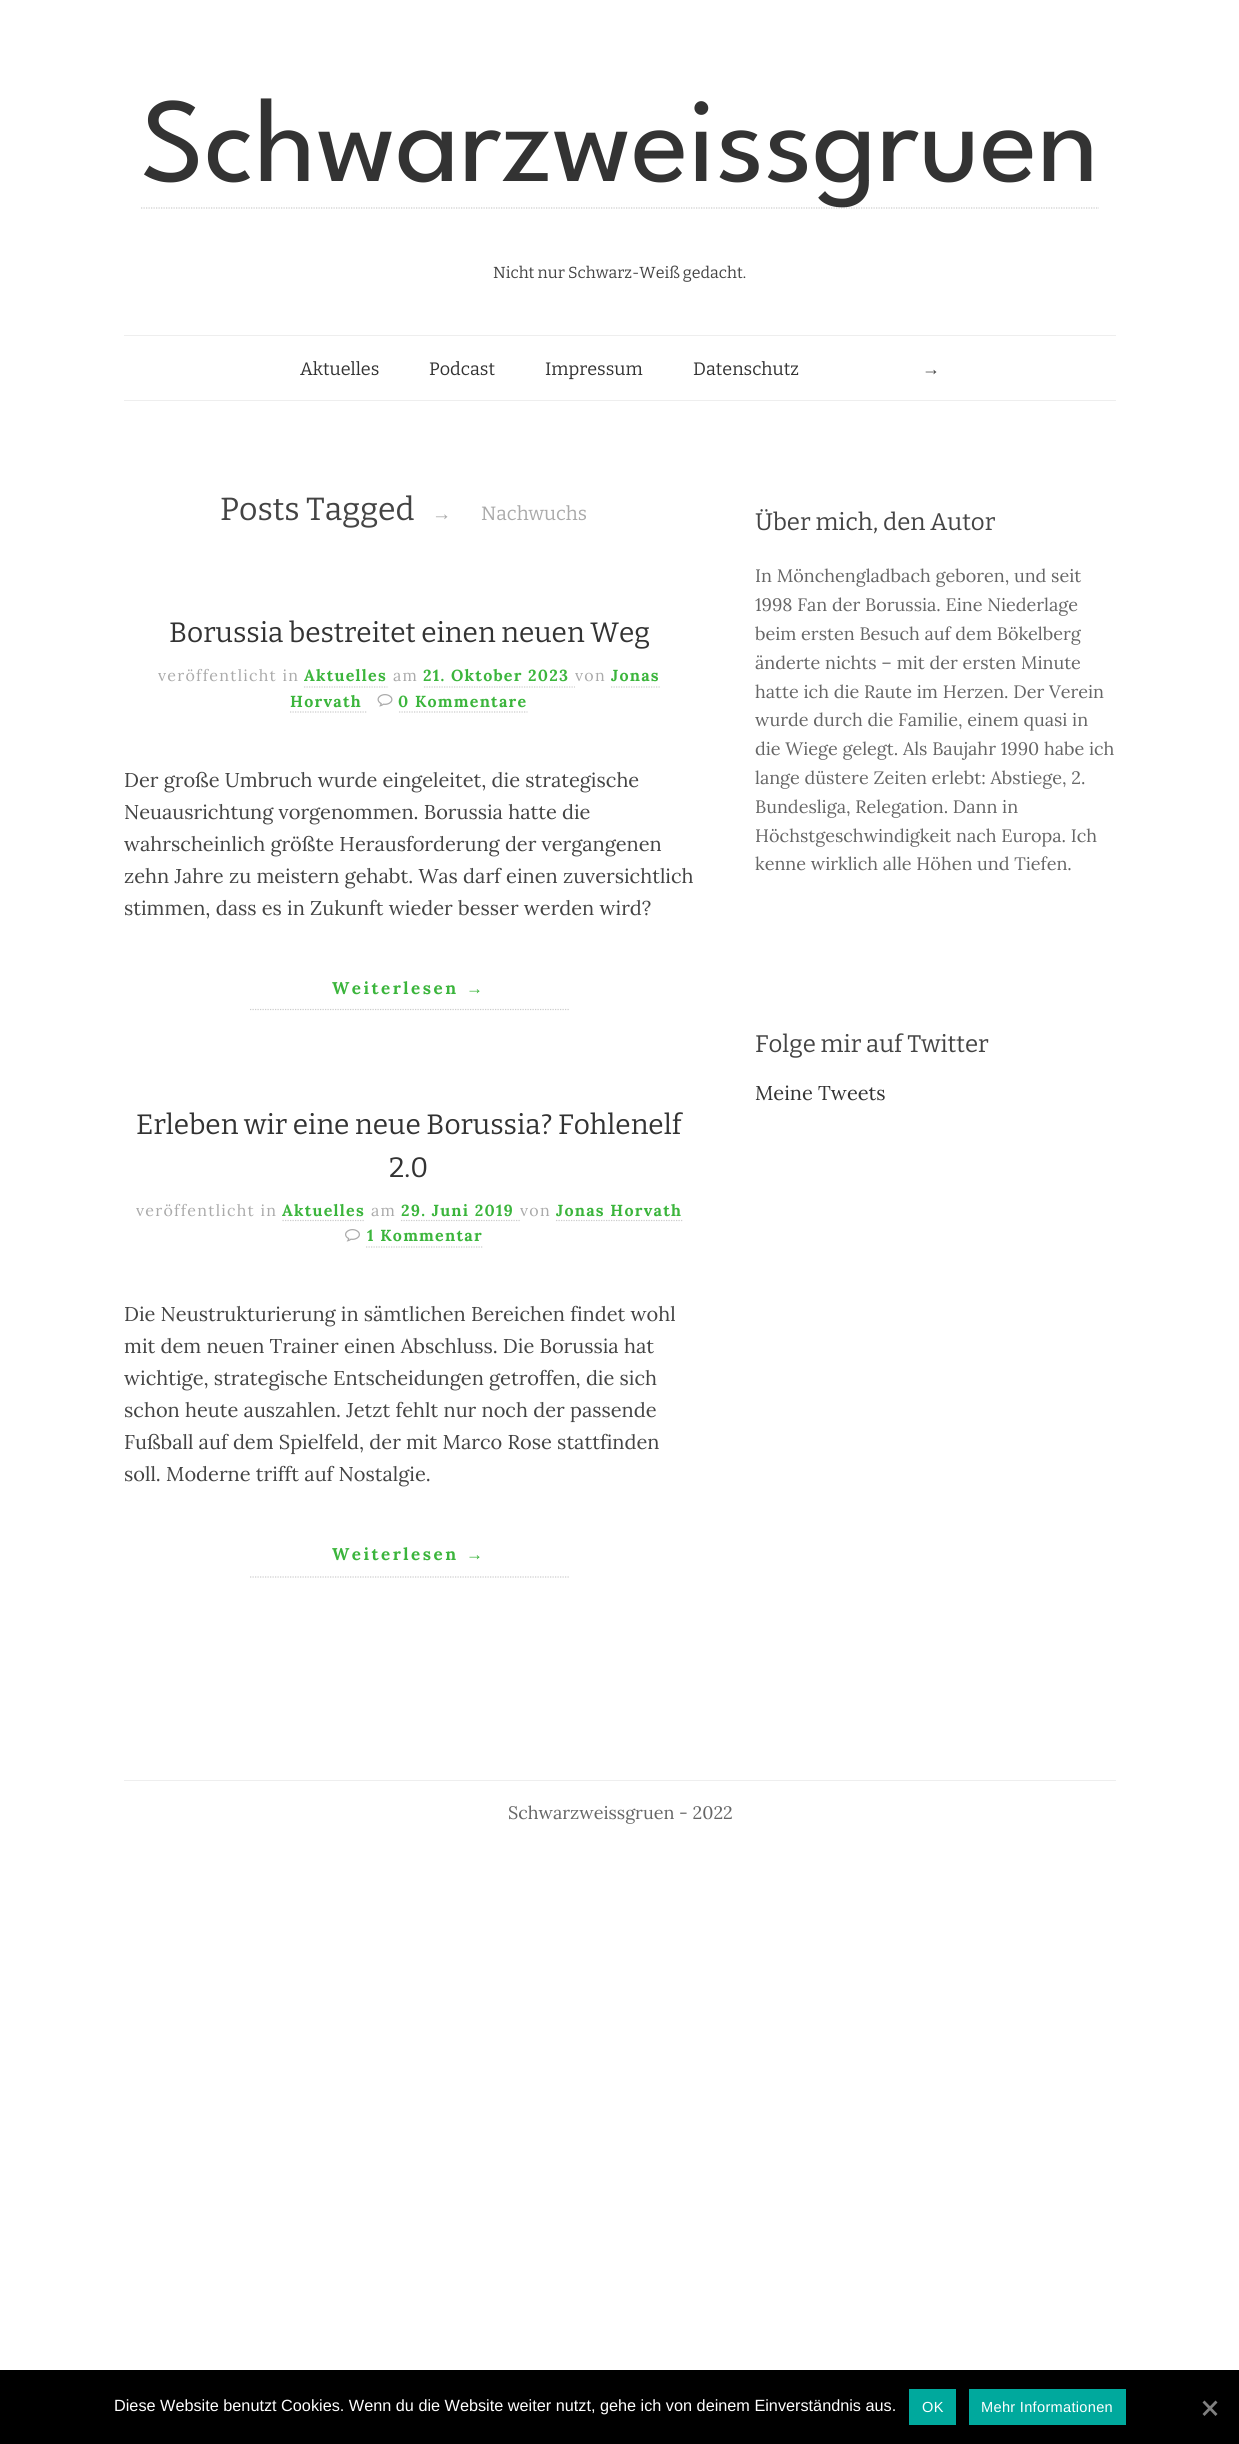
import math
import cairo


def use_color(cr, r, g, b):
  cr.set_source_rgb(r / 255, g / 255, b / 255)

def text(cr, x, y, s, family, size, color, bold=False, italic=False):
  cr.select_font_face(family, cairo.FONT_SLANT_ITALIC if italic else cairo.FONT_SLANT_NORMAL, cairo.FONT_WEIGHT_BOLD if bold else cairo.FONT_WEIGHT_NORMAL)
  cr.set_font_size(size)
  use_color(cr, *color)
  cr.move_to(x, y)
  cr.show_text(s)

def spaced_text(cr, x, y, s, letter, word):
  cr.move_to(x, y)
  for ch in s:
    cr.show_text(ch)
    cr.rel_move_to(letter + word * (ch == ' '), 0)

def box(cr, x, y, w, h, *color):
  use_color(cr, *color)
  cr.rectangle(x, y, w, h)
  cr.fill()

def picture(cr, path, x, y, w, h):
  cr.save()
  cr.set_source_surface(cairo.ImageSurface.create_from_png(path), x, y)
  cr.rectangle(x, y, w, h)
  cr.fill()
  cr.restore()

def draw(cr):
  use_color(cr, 255, 255, 255)
  cr.paint()
  cr.new_path()
  cr.move_to(141, 208)
  cr.line_to(1099, 208)
  use_color(cr, 204, 204, 204)
  cr.set_line_width(1.2)
  cr.set_dash([1.25, 1.25])
  cr.stroke()
  box(cr, 124, 335, 992, 1, 238, 238, 238)
  box(cr, 124, 400, 992, 1, 238, 238, 238)
  cr.new_path()
  cr.move_to(304, 687)
  cr.line_to(387.5, 687)
  use_color(cr, 204, 204, 204)
  cr.stroke()
  cr.new_path()
  cr.move_to(424, 687)
  cr.line_to(575, 687)
  cr.stroke()
  cr.new_path()
  cr.move_to(611, 687)
  cr.line_to(660, 687)
  cr.stroke()
  cr.new_path()
  cr.move_to(290, 712)
  cr.line_to(367.5, 712)
  cr.stroke()
  picture(cr, "img_01.png", 377, 694, 16, 13)
  cr.new_path()
  cr.move_to(399, 712)
  cr.line_to(527.5, 712)
  cr.stroke()
  cr.new_path()
  cr.move_to(250, 1009.5)
  cr.line_to(569, 1009.5)
  cr.stroke()
  cr.new_path()
  cr.move_to(282.5, 1220.5)
  cr.line_to(365, 1220.5)
  cr.stroke()
  cr.new_path()
  cr.move_to(401, 1220.5)
  cr.line_to(520, 1220.5)
  cr.stroke()
  cr.new_path()
  cr.move_to(556, 1220.5)
  cr.line_to(682.5, 1220.5)
  cr.stroke()
  picture(cr, "img_02.png", 345, 1229, 15, 13)
  cr.new_path()
  cr.move_to(366, 1247)
  cr.line_to(482.5, 1247)
  cr.stroke()
  cr.new_path()
  cr.move_to(250, 1577)
  cr.line_to(569, 1577)
  cr.stroke()
  box(cr, 124, 1780, 992, 1, 238, 238, 238)
  box(cr, 0, 2370, 1239, 74, 0, 0, 0)
  box(cr, 909, 2389, 47, 36, 0, 169, 157)
  box(cr, 969, 2389, 157, 36, 0, 169, 157)
  use_color(cr, 128, 128, 128)
  cr.new_path()
  cr.move_to(1215.5, 2400.5)
  cr.line_to(1217.5, 2402.5)
  cr.line_to(1204.5, 2416)
  cr.line_to(1202.5, 2414)
  cr.close_path()
  cr.fill()
  cr.new_path()
  cr.move_to(1202.5, 2402.5)
  cr.line_to(1204.5, 2400.5)
  cr.line_to(1217.5, 2414)
  cr.line_to(1215.5, 2416)
  cr.close_path()
  cr.fill()
  text(cr, 141, 181, "Schwarzweissgruen", "League Spartan", 120, (51, 51, 51))
  text(cr, 493, 278, "Nicht nur Schwarz-Weiß gedacht.", "Bitter Thin", 16, (68, 68, 68))
  text(cr, 300, 375, "Aktuelles", "Bitter Thin", 18, (51, 51, 51))
  text(cr, 429, 375, "Podcast", "Bitter Thin", 18, (51, 51, 51))
  text(cr, 545, 375, "Impressum", "Bitter Thin", 18, (51, 51, 51))
  text(cr, 693, 375, "Datenschutz", "Bitter Thin", 18, (51, 51, 51))
  text(cr, 922, 375, "→", "Liberation Serif", 18, (68, 68, 68))
  text(cr, 220, 520, "Posts Tagged", "Bitter Thin", 32, (68, 68, 68))
  text(cr, 432, 520, "→", "Liberation Serif", 19.25, (170, 170, 170))
  text(cr, 481, 520, "Nachwuchs", "Bitter Thin", 19.25, (170, 170, 170))
  text(cr, 169, 642, "Borussia bestreitet einen neuen Weg", "Bitter Thin", 28, (51, 51, 51))
  cr.select_font_face("Lora")
  cr.set_font_size(16)
  use_color(cr, 170, 170, 170)
  spaced_text(cr, 158, 681, "veröffentlicht in", 1.25, 0)
  cr.select_font_face("Lora", cairo.FONT_SLANT_NORMAL, cairo.FONT_WEIGHT_BOLD)
  use_color(cr, 59, 181, 60)
  spaced_text(cr, 304, 681, "Aktuelles", 1.25, 0)
  cr.select_font_face("Lora")
  use_color(cr, 170, 170, 170)
  spaced_text(cr, 393, 681, "am", 1.25, 0)
  cr.select_font_face("Lora", cairo.FONT_SLANT_NORMAL, cairo.FONT_WEIGHT_BOLD)
  use_color(cr, 59, 181, 60)
  spaced_text(cr, 423, 681, "21. Oktober 2023", 1.25, 0)
  cr.select_font_face("Lora")
  use_color(cr, 170, 170, 170)
  spaced_text(cr, 575, 681, "von", 1.25, 0)
  cr.select_font_face("Lora", cairo.FONT_SLANT_NORMAL, cairo.FONT_WEIGHT_BOLD)
  use_color(cr, 59, 181, 60)
  spaced_text(cr, 611, 681, "Jonas", 1.25, 0)
  spaced_text(cr, 290, 707, "Horvath", 1.25, 0)
  spaced_text(cr, 398, 707, "0 Kommentare", 1.25, 0)
  text(cr, 124, 787, "Der große Umbruch wurde eingeleitet, die strategische", "Lora", 20, (68, 68, 68))
  text(cr, 124, 819, "Neuausrichtung vorgenommen. Borussia hatte die", "Lora", 20, (68, 68, 68))
  text(cr, 124, 851, "wahrscheinlich größte Herausforderung der vergangenen", "Lora", 20, (68, 68, 68))
  text(cr, 124, 883, "zehn Jahre zu meistern gehabt. Was darf einen zuversichtlich", "Lora", 20, (68, 68, 68))
  text(cr, 124, 915, "stimmen, dass es in Zukunft wieder besser werden wird?", "Lora", 20, (68, 68, 68))
  cr.select_font_face("Lora", cairo.FONT_SLANT_NORMAL, cairo.FONT_WEIGHT_BOLD)
  cr.set_font_size(17)
  use_color(cr, 59, 181, 60)
  spaced_text(cr, 332, 994, "Weiterlesen", 2.5, 0)
  cr.select_font_face("Liberation Serif", cairo.FONT_SLANT_NORMAL, cairo.FONT_WEIGHT_BOLD)
  spaced_text(cr, 466, 994, "→", 2.5, 0)
  text(cr, 136, 1134, "Erleben wir eine neue Borussia? Fohlenelf", "Bitter Thin", 28, (51, 51, 51))
  text(cr, 389, 1177, "2.0", "Bitter Thin", 28, (51, 51, 51))
  cr.select_font_face("Lora")
  cr.set_font_size(16)
  use_color(cr, 170, 170, 170)
  spaced_text(cr, 136, 1216, "veröffentlicht in", 1.25, 0)
  cr.select_font_face("Lora", cairo.FONT_SLANT_NORMAL, cairo.FONT_WEIGHT_BOLD)
  use_color(cr, 59, 181, 60)
  spaced_text(cr, 282, 1216, "Aktuelles", 1.25, 0)
  cr.select_font_face("Lora")
  use_color(cr, 170, 170, 170)
  spaced_text(cr, 371, 1216, "am", 1.25, 0)
  cr.select_font_face("Lora", cairo.FONT_SLANT_NORMAL, cairo.FONT_WEIGHT_BOLD)
  use_color(cr, 59, 181, 60)
  spaced_text(cr, 401, 1216, "29. Juni 2019", 1.25, 0)
  cr.select_font_face("Lora")
  use_color(cr, 170, 170, 170)
  spaced_text(cr, 520, 1216, "von", 1.25, 0)
  cr.select_font_face("Lora", cairo.FONT_SLANT_NORMAL, cairo.FONT_WEIGHT_BOLD)
  use_color(cr, 59, 181, 60)
  spaced_text(cr, 556, 1216, "Jonas Horvath", 1.25, 0)
  spaced_text(cr, 367, 1241, "1 Kommentar", 1.25, 0)
  text(cr, 124, 1321, "Die Neustrukturierung in sämtlichen Bereichen findet wohl", "Lora", 20, (68, 68, 68))
  text(cr, 124, 1353, "mit dem neuen Trainer einen Abschluss. Die Borussia hat", "Lora", 20, (68, 68, 68))
  text(cr, 124, 1385, "wichtige, strategische Entscheidungen getroffen, die sich", "Lora", 20, (68, 68, 68))
  text(cr, 124, 1417, "schon heute auszahlen. Jetzt fehlt nur noch der passende", "Lora", 20, (68, 68, 68))
  text(cr, 124, 1449, "Fußball auf dem Spielfeld, der mit Marco Rose stattfinden", "Lora", 20, (68, 68, 68))
  text(cr, 124, 1481, "soll. Moderne trifft auf Nostalgie.", "Lora", 20, (68, 68, 68))
  cr.select_font_face("Lora", cairo.FONT_SLANT_NORMAL, cairo.FONT_WEIGHT_BOLD)
  cr.set_font_size(17)
  use_color(cr, 59, 181, 60)
  spaced_text(cr, 332, 1560, "Weiterlesen", 2.5, 0)
  cr.select_font_face("Liberation Serif", cairo.FONT_SLANT_NORMAL, cairo.FONT_WEIGHT_BOLD)
  spaced_text(cr, 466, 1560, "→", 2.5, 0)
  text(cr, 755, 530, "Über mich, den Autor", "Bitter Thin", 24, (68, 68, 68))
  text(cr, 755, 582, "In Mönchengladbach geboren, und seit", "Lora", 18, (102, 102, 102))
  text(cr, 755, 611, "1998 Fan der Borussia. Eine Niederlage", "Lora", 18, (102, 102, 102))
  text(cr, 755, 640, "beim ersten Besuch auf dem Bökelberg", "Lora", 18, (102, 102, 102))
  text(cr, 755, 669, "änderte nichts – mit der ersten Minute", "Lora", 18, (102, 102, 102))
  text(cr, 755, 698, "hatte ich die Raute im Herzen. Der Verein", "Lora", 18, (102, 102, 102))
  text(cr, 755, 726, "wurde durch die Familie, einem quasi in", "Lora", 18, (102, 102, 102))
  text(cr, 755, 755, "die Wiege gelegt. Als Baujahr 1990 habe ich", "Lora", 18, (102, 102, 102))
  text(cr, 755, 784, "lange düstere Zeiten erlebt: Abstiege, 2.", "Lora", 18, (102, 102, 102))
  text(cr, 755, 813, "Bundesliga, Relegation. Dann in", "Lora", 18, (102, 102, 102))
  text(cr, 755, 842, "Höchstgeschwindigkeit nach Europa. Ich", "Lora", 18, (102, 102, 102))
  text(cr, 755, 870, "kenne wirklich alle Höhen und Tiefen.", "Lora", 18, (102, 102, 102))
  text(cr, 755, 1052, "Folge mir auf Twitter", "Bitter Thin", 24, (68, 68, 68))
  text(cr, 755, 1100, "Meine Tweets", "Lora", 20, (51, 51, 51))
  text(cr, 508, 1819, "Schwarzweissgruen - 2022", "Lora", 18, (102, 102, 102))
  text(cr, 114, 2411, "Diese Website benutzt Cookies. Wenn du die Website weiter nutzt, gehe ich von deinem Einverständnis aus.", "Liberation Sans", 16.25, (255, 255, 255))
  cr.set_font_size(14.6)
  spaced_text(cr, 922, 2412, "OK", 0.3, 0)
  spaced_text(cr, 981, 2412, "Mehr Informationen", 0.3, 0)


surface = cairo.ImageSurface(cairo.FORMAT_RGB24, 1239, 2444)
cr = cairo.Context(surface)
options = cairo.FontOptions()
options.set_hint_metrics(cairo.HINT_METRICS_OFF)
options.set_hint_style(cairo.HINT_STYLE_NONE)
cr.set_font_options(options)
cr.set_miter_limit(4)
draw(cr)
surface.write_to_png("out.png")
